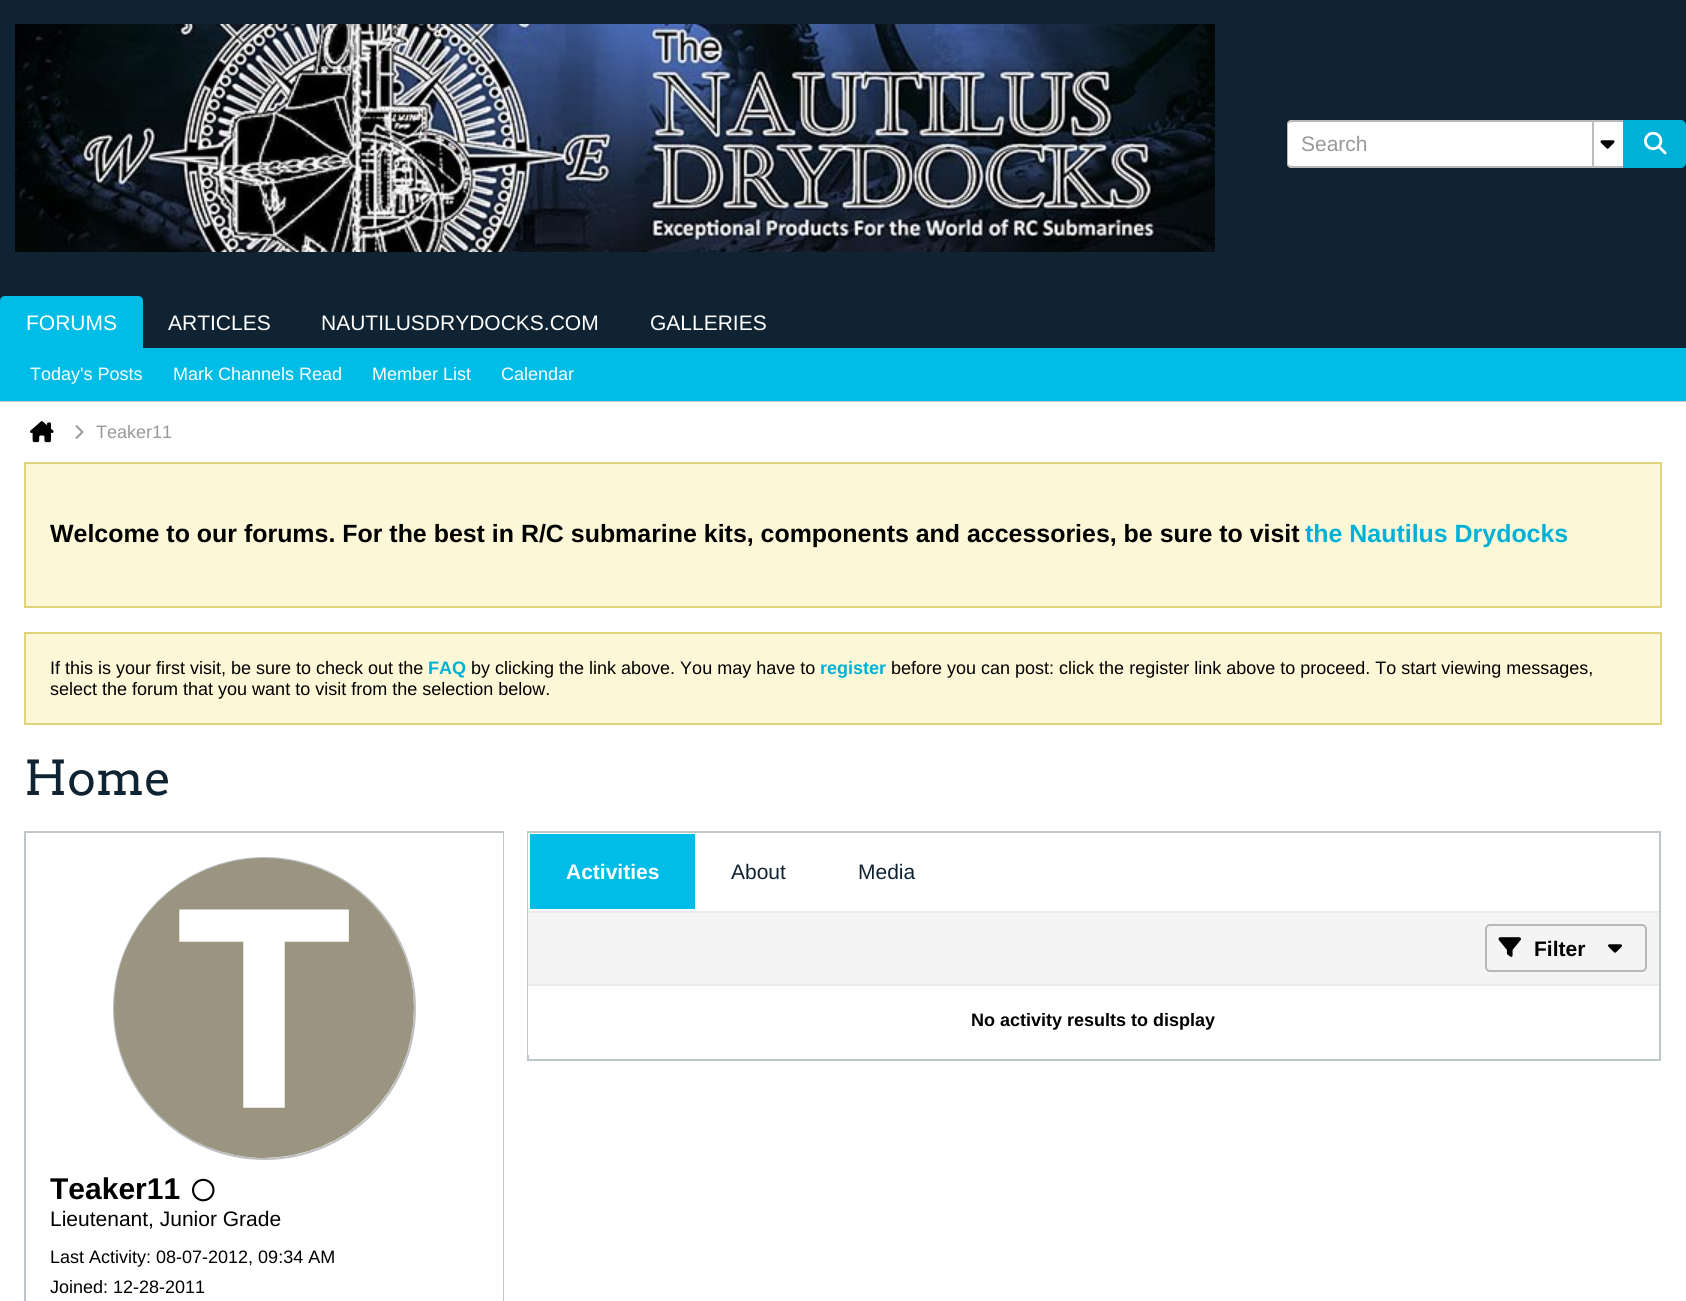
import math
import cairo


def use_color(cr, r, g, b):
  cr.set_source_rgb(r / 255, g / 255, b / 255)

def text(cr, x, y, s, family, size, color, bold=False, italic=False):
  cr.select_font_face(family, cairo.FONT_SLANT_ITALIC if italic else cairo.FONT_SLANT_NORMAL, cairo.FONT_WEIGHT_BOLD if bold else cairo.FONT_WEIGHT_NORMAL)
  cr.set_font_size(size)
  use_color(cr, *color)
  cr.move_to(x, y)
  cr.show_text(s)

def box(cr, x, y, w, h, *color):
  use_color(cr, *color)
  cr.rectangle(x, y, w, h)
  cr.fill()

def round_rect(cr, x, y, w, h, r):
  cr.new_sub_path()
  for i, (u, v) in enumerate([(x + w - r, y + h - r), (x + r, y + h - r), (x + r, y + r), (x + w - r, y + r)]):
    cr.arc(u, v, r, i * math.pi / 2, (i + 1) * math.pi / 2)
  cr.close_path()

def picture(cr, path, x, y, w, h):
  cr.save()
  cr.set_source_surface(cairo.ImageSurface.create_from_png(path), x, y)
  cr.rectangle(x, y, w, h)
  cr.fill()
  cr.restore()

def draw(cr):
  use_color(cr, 255, 255, 255)
  cr.paint()
  box(cr, 0, 0, 1686, 348, 15, 35, 50)
  picture(cr, "img_01.png", 15, 24, 1200, 228)
  use_color(cr, 255, 255, 255)
  cr.new_path()
  cr.move_to(1292, 120)
  cr.line_to(1623, 120)
  cr.line_to(1623, 168)
  cr.line_to(1292, 168)
  cr.curve_to(1289, 168, 1287, 166, 1287, 163)
  cr.line_to(1287, 125)
  cr.curve_to(1287, 122, 1289, 120, 1292, 120)
  cr.close_path()
  cr.fill()
  use_color(cr, 183, 183, 183)
  cr.set_fill_rule(cairo.FILL_RULE_EVEN_ODD)
  cr.new_path()
  cr.move_to(1292, 120)
  cr.line_to(1623, 120)
  cr.line_to(1623, 168)
  cr.line_to(1292, 168)
  cr.curve_to(1289, 168, 1287, 166, 1287, 164)
  cr.line_to(1287, 124)
  cr.curve_to(1287, 122, 1289, 120, 1292, 120)
  cr.close_path()
  cr.move_to(1292, 122)
  cr.line_to(1623, 122)
  cr.line_to(1623, 166)
  cr.line_to(1292, 166)
  cr.curve_to(1290, 166, 1288, 165, 1288, 164)
  cr.line_to(1288, 124)
  cr.curve_to(1288, 123, 1290, 122, 1292, 122)
  cr.close_path()
  cr.fill()
  box(cr, 1592, 120, 2, 48, 189, 189, 189)
  picture(cr, "img_02.png", 1600, 140, 15, 9)
  use_color(cr, 0, 177, 215)
  cr.new_path()
  cr.move_to(1624, 121)
  cr.line_to(1681, 121)
  cr.curve_to(1683, 121, 1685, 123, 1685, 125)
  cr.line_to(1685, 163)
  cr.curve_to(1685, 165, 1683, 167, 1681, 167)
  cr.line_to(1624, 167)
  cr.close_path()
  cr.fill_preserve()
  cr.stroke()
  picture(cr, "img_03.png", 1644, 131, 23, 24)
  use_color(cr, 0, 189, 232)
  cr.new_path()
  cr.move_to(5, 296)
  cr.line_to(138, 296)
  cr.curve_to(141, 296, 143, 298, 143, 301)
  cr.line_to(143, 348)
  cr.line_to(0, 348)
  cr.line_to(0, 301)
  cr.curve_to(0, 298, 2, 296, 5, 296)
  cr.close_path()
  cr.fill()
  box(cr, 0, 348, 1686, 53, 0, 189, 232)
  box(cr, 0, 401, 1686, 1, 199, 199, 200)
  picture(cr, "img_04.png", 30, 421, 24, 22)
  picture(cr, "img_05.png", 75, 425, 9, 14)
  use_color(cr, 252, 247, 215)
  cr.rectangle(25, 463, 1636, 144)
  cr.fill_preserve()
  use_color(cr, 225, 212, 126)
  cr.stroke()
  use_color(cr, 252, 247, 215)
  cr.rectangle(25, 633, 1636, 91)
  cr.fill_preserve()
  use_color(cr, 225, 212, 126)
  cr.stroke()
  cr.rectangle(528, 832, 1132, 228)
  use_color(cr, 189, 199, 202)
  cr.stroke()
  box(cr, 528, 986, 1, 69, 255, 255, 255)
  box(cr, 528, 833, 1, 78, 255, 255, 255)
  box(cr, 530, 834, 165, 75, 0, 189, 232)
  box(cr, 528, 913, 1131, 71, 245, 244, 244)
  box(cr, 528, 911, 1131, 2, 236, 234, 234)
  box(cr, 528, 984, 1131, 2, 236, 234, 234)
  round_rect(cr, 1486, 925, 160, 46, 4)
  use_color(cr, 183, 183, 183)
  cr.stroke()
  picture(cr, "img_06.png", 1498, 937, 23, 20)
  picture(cr, "img_07.png", 1608, 944, 14, 9)
  cr.rectangle(25, 832, 478, 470)
  use_color(cr, 189, 199, 202)
  cr.stroke()
  box(cr, 502, 833, 1, 468, 255, 255, 255)
  cr.arc(264.5, 1008.5, 150.5, 0, 2 * math.pi)
  use_color(cr, 188, 190, 192)
  cr.stroke()
  picture(cr, "img_08.png", 114, 858, 300, 300)
  picture(cr, "img_09.png", 192, 1178, 23, 24)
  text(cr, 1301, 151, "Search", "Liberation Sans", 21, (153, 153, 153))
  text(cr, 26, 330, "FORUMS", "Liberation Sans", 21, (255, 255, 255))
  text(cr, 168, 330, "ARTICLES", "Liberation Sans", 21, (255, 255, 255))
  text(cr, 321, 330, "NAUTILUSDRYDOCKS.COM", "Liberation Sans", 21, (255, 255, 255))
  text(cr, 650, 330, "GALLERIES", "Liberation Sans", 21, (255, 255, 255))
  text(cr, 30, 380, "Today's Posts", "Liberation Sans", 18, (255, 255, 255))
  text(cr, 173, 380, "Mark Channels Read", "Liberation Sans", 18, (255, 255, 255))
  text(cr, 372, 380, "Member List", "Liberation Sans", 18, (255, 255, 255))
  text(cr, 501, 380, "Calendar", "Liberation Sans", 18, (255, 255, 255))
  text(cr, 96, 438, "Teaker11", "Liberation Sans", 18, (153, 153, 153))
  text(cr, 50, 542, "Welcome to our forums. For the best in R/C submarine kits, components and accessories, be sure to visit", "Liberation Sans", 24.93, (0, 0, 0), bold=True)
  text(cr, 1305, 542, "the Nautilus Drydocks", "Liberation Sans", 24.93, (0, 177, 215), bold=True)
  text(cr, 50, 674, "If this is your first visit, be sure to check out the", "Liberation Sans", 18, (0, 0, 0))
  text(cr, 428, 674, "FAQ", "Liberation Sans", 18, (0, 177, 215), bold=True)
  text(cr, 471, 674, "by clicking the link above. You may have to", "Liberation Sans", 18, (0, 0, 0))
  text(cr, 820, 674, "register", "Liberation Sans", 18, (0, 177, 215), bold=True)
  text(cr, 891, 674, "before you can post: click the register link above to proceed. To start viewing messages,", "Liberation Sans", 18, (0, 0, 0))
  text(cr, 50, 695, "select the forum that you want to visit from the selection below.", "Liberation Sans", 18, (0, 0, 0))
  text(cr, 24, 795, "Home", "Arvo", 48, (15, 35, 50))
  text(cr, 566, 879, "Activities", "Liberation Sans", 21, (255, 255, 255), bold=True)
  text(cr, 731, 879, "About", "Liberation Sans", 21, (15, 35, 50))
  text(cr, 858, 879, "Media", "Liberation Sans", 21, (15, 35, 50))
  text(cr, 1534, 956, "Filter", "Liberation Sans", 21, (0, 0, 0), bold=True)
  text(cr, 971, 1026, "No activity results to display", "Liberation Sans", 18, (0, 0, 0), bold=True)
  text(cr, 50, 1199, "Teaker11", "Liberation Sans", 30, (0, 0, 0), bold=True)
  text(cr, 50, 1226, "Lieutenant, Junior Grade", "Liberation Sans", 21, (0, 0, 0))
  text(cr, 50, 1263, "Last Activity: 08-07-2012, 09:34 AM", "Liberation Sans", 18, (0, 0, 0))
  text(cr, 50, 1293, "Joined: 12-28-2011", "Liberation Sans", 18, (0, 0, 0))


surface = cairo.ImageSurface(cairo.FORMAT_RGB24, 1686, 1301)
cr = cairo.Context(surface)
options = cairo.FontOptions()
options.set_hint_metrics(cairo.HINT_METRICS_OFF)
options.set_hint_style(cairo.HINT_STYLE_NONE)
cr.set_font_options(options)
cr.set_miter_limit(4)
draw(cr)
surface.write_to_png("out.png")
